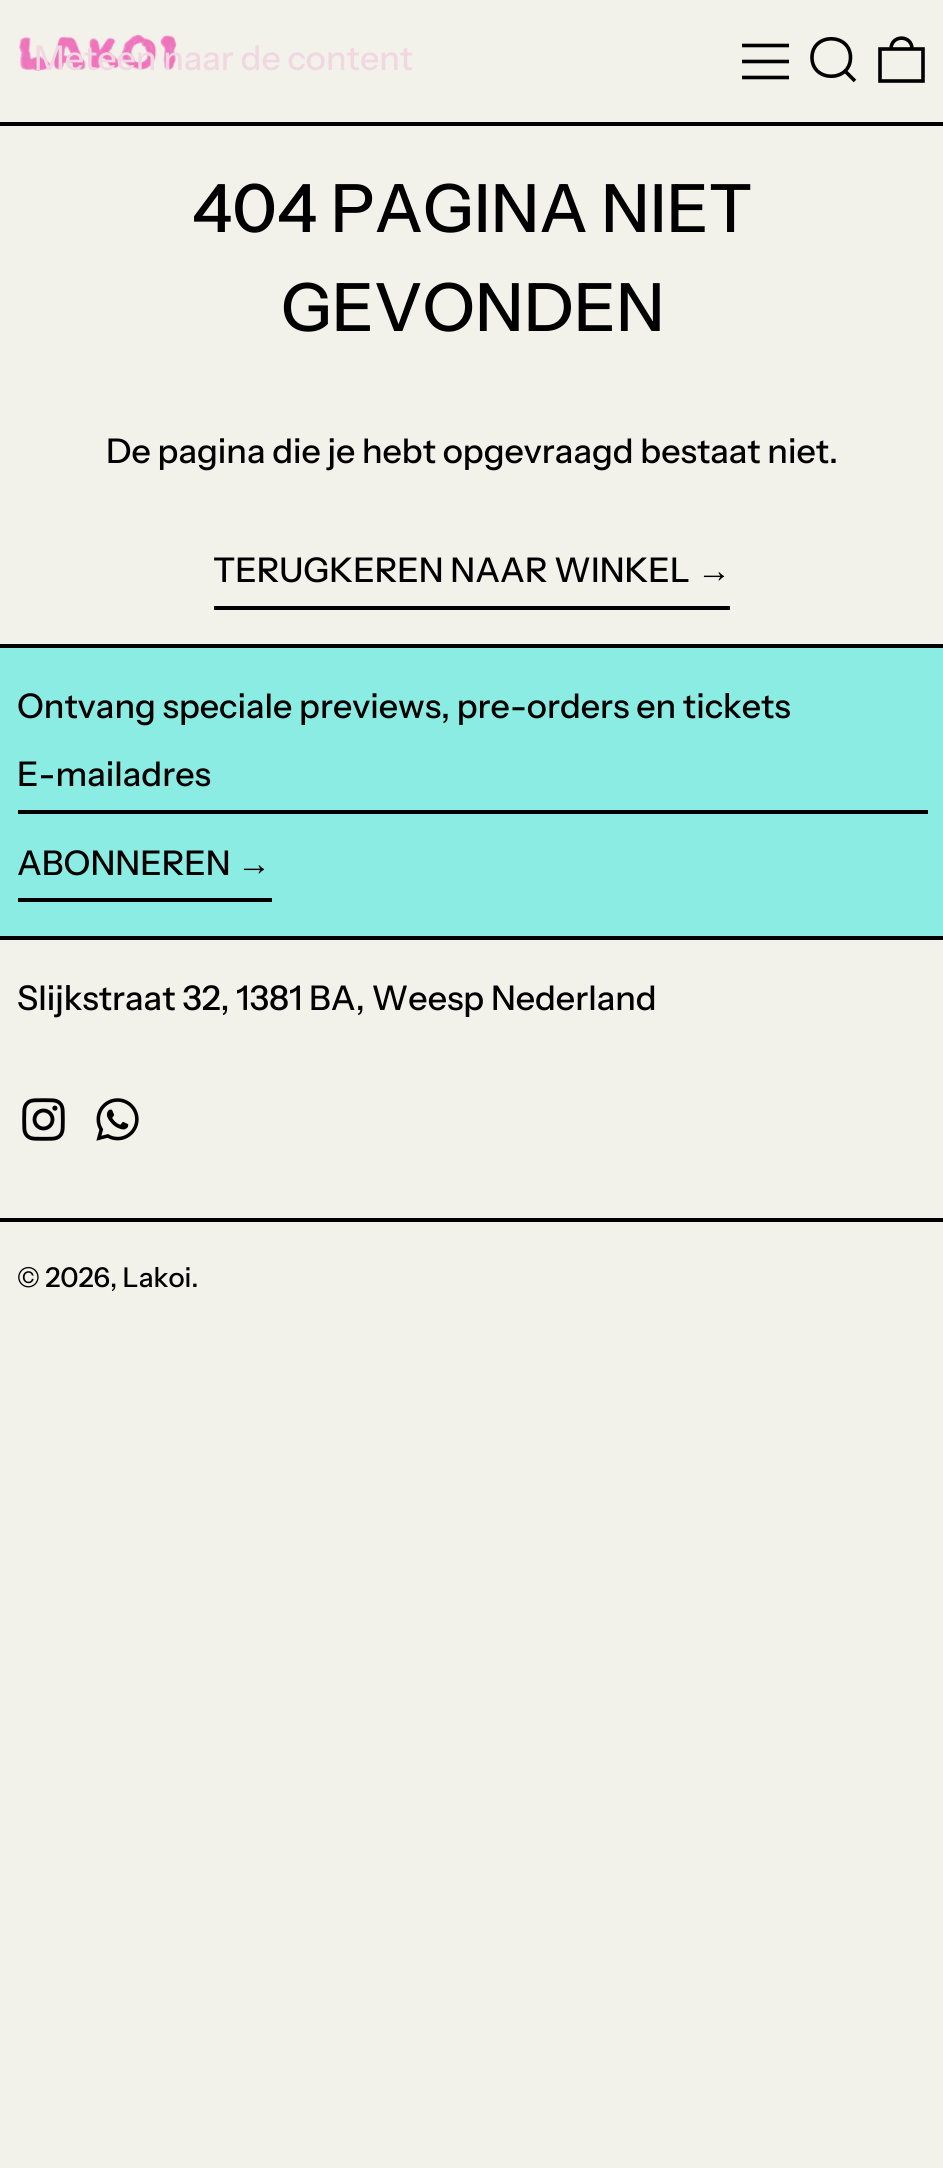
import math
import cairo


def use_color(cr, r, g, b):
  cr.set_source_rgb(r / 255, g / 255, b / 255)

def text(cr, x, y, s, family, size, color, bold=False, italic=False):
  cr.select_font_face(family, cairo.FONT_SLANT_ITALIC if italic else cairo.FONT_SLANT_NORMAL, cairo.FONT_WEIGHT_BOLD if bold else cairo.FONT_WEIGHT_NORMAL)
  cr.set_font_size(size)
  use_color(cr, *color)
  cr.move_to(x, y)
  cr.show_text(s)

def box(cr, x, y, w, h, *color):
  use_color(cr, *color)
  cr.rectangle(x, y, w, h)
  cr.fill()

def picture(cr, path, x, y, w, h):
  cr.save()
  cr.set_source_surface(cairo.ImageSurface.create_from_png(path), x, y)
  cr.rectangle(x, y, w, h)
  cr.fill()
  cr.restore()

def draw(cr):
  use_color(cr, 242, 242, 235)
  cr.paint()
  box(cr, 0, 122, 943, 4, 0, 0, 0)
  picture(cr, "img_01.png", 19, 34, 158, 37)
  cr.new_path()
  cr.move_to(742, 45.5)
  cr.line_to(789, 45.5)
  cr.move_to(742, 61.5)
  cr.line_to(789, 61.5)
  cr.move_to(742, 77.5)
  cr.line_to(789, 77.5)
  cr.set_line_width(3.6)
  cr.stroke()
  cr.new_path()
  cr.move_to(812, 57.5)
  cr.curve_to(812, 82.5, 850.5, 82.5, 850.5, 57.5)
  cr.curve_to(850.5, 32.5, 812, 32.5, 812, 57.5)
  cr.close_path()
  cr.move_to(845, 71)
  cr.line_to(855, 81)
  cr.stroke()
  cr.new_path()
  cr.move_to(880, 49)
  cr.line_to(923, 49)
  cr.line_to(923, 81)
  cr.line_to(880, 81)
  cr.close_path()
  cr.move_to(912, 49)
  cr.curve_to(912, 34.5, 891, 34.5, 891, 49)
  cr.stroke()
  box(cr, 0, 644, 943, 4, 0, 0, 0)
  box(cr, 214, 606, 516, 4, 0, 0, 0)
  box(cr, 0, 648, 943, 288, 139, 236, 227)
  box(cr, 0, 936, 943, 4, 0, 0, 0)
  box(cr, 18, 810, 910, 4, 0, 0, 0)
  box(cr, 18, 898, 254, 4, 0, 0, 0)
  box(cr, 0, 1218, 943, 4, 0, 0, 0)
  picture(cr, "img_02.png", 22, 1098, 43, 43)
  picture(cr, "img_03.png", 96, 1098, 43, 43)
  text(cr, 34, 70, "Meteen naar de content", "Instrument Sans Medium", 34, (241, 215, 225))
  text(cr, 192, 232, "404 PAGINA NIET", "Instrument Sans Medium", 66.5, (0, 0, 0))
  text(cr, 281, 331, "GEVONDEN", "Instrument Sans Medium", 66.5, (0, 0, 0))
  text(cr, 106, 463, "De pagina die je hebt opgevraagd bestaat niet.", "Instrument Sans Medium", 34, (0, 0, 0))
  text(cr, 213, 582, "TERUGKEREN NAAR WINKEL", "Instrument Sans Medium", 34, (0, 0, 0))
  text(cr, 697, 582, "→", "Liberation Sans", 34, (0, 0, 0))
  text(cr, 17, 718, "Ontvang speciale previews, pre-orders en tickets", "Instrument Sans Medium", 34, (0, 0, 0))
  text(cr, 17, 786, "E-mailadres", "Instrument Sans Medium", 34, (0, 0, 0))
  text(cr, 17, 875, "ABONNEREN", "Instrument Sans Medium", 34, (0, 0, 0))
  text(cr, 237, 875, "→", "Liberation Sans", 34, (0, 0, 0))
  text(cr, 17, 1010, "Slijkstraat 32, 1381 BA, Weesp Nederland", "Instrument Sans Medium", 34, (0, 0, 0))
  text(cr, 17, 1287, "© 2026, Lakoi.", "Instrument Sans Medium", 27.25, (0, 0, 0))


surface = cairo.ImageSurface(cairo.FORMAT_RGB24, 943, 2168)
cr = cairo.Context(surface)
options = cairo.FontOptions()
options.set_hint_metrics(cairo.HINT_METRICS_OFF)
options.set_hint_style(cairo.HINT_STYLE_NONE)
cr.set_font_options(options)
cr.set_miter_limit(4)
draw(cr)
surface.write_to_png("out.png")
